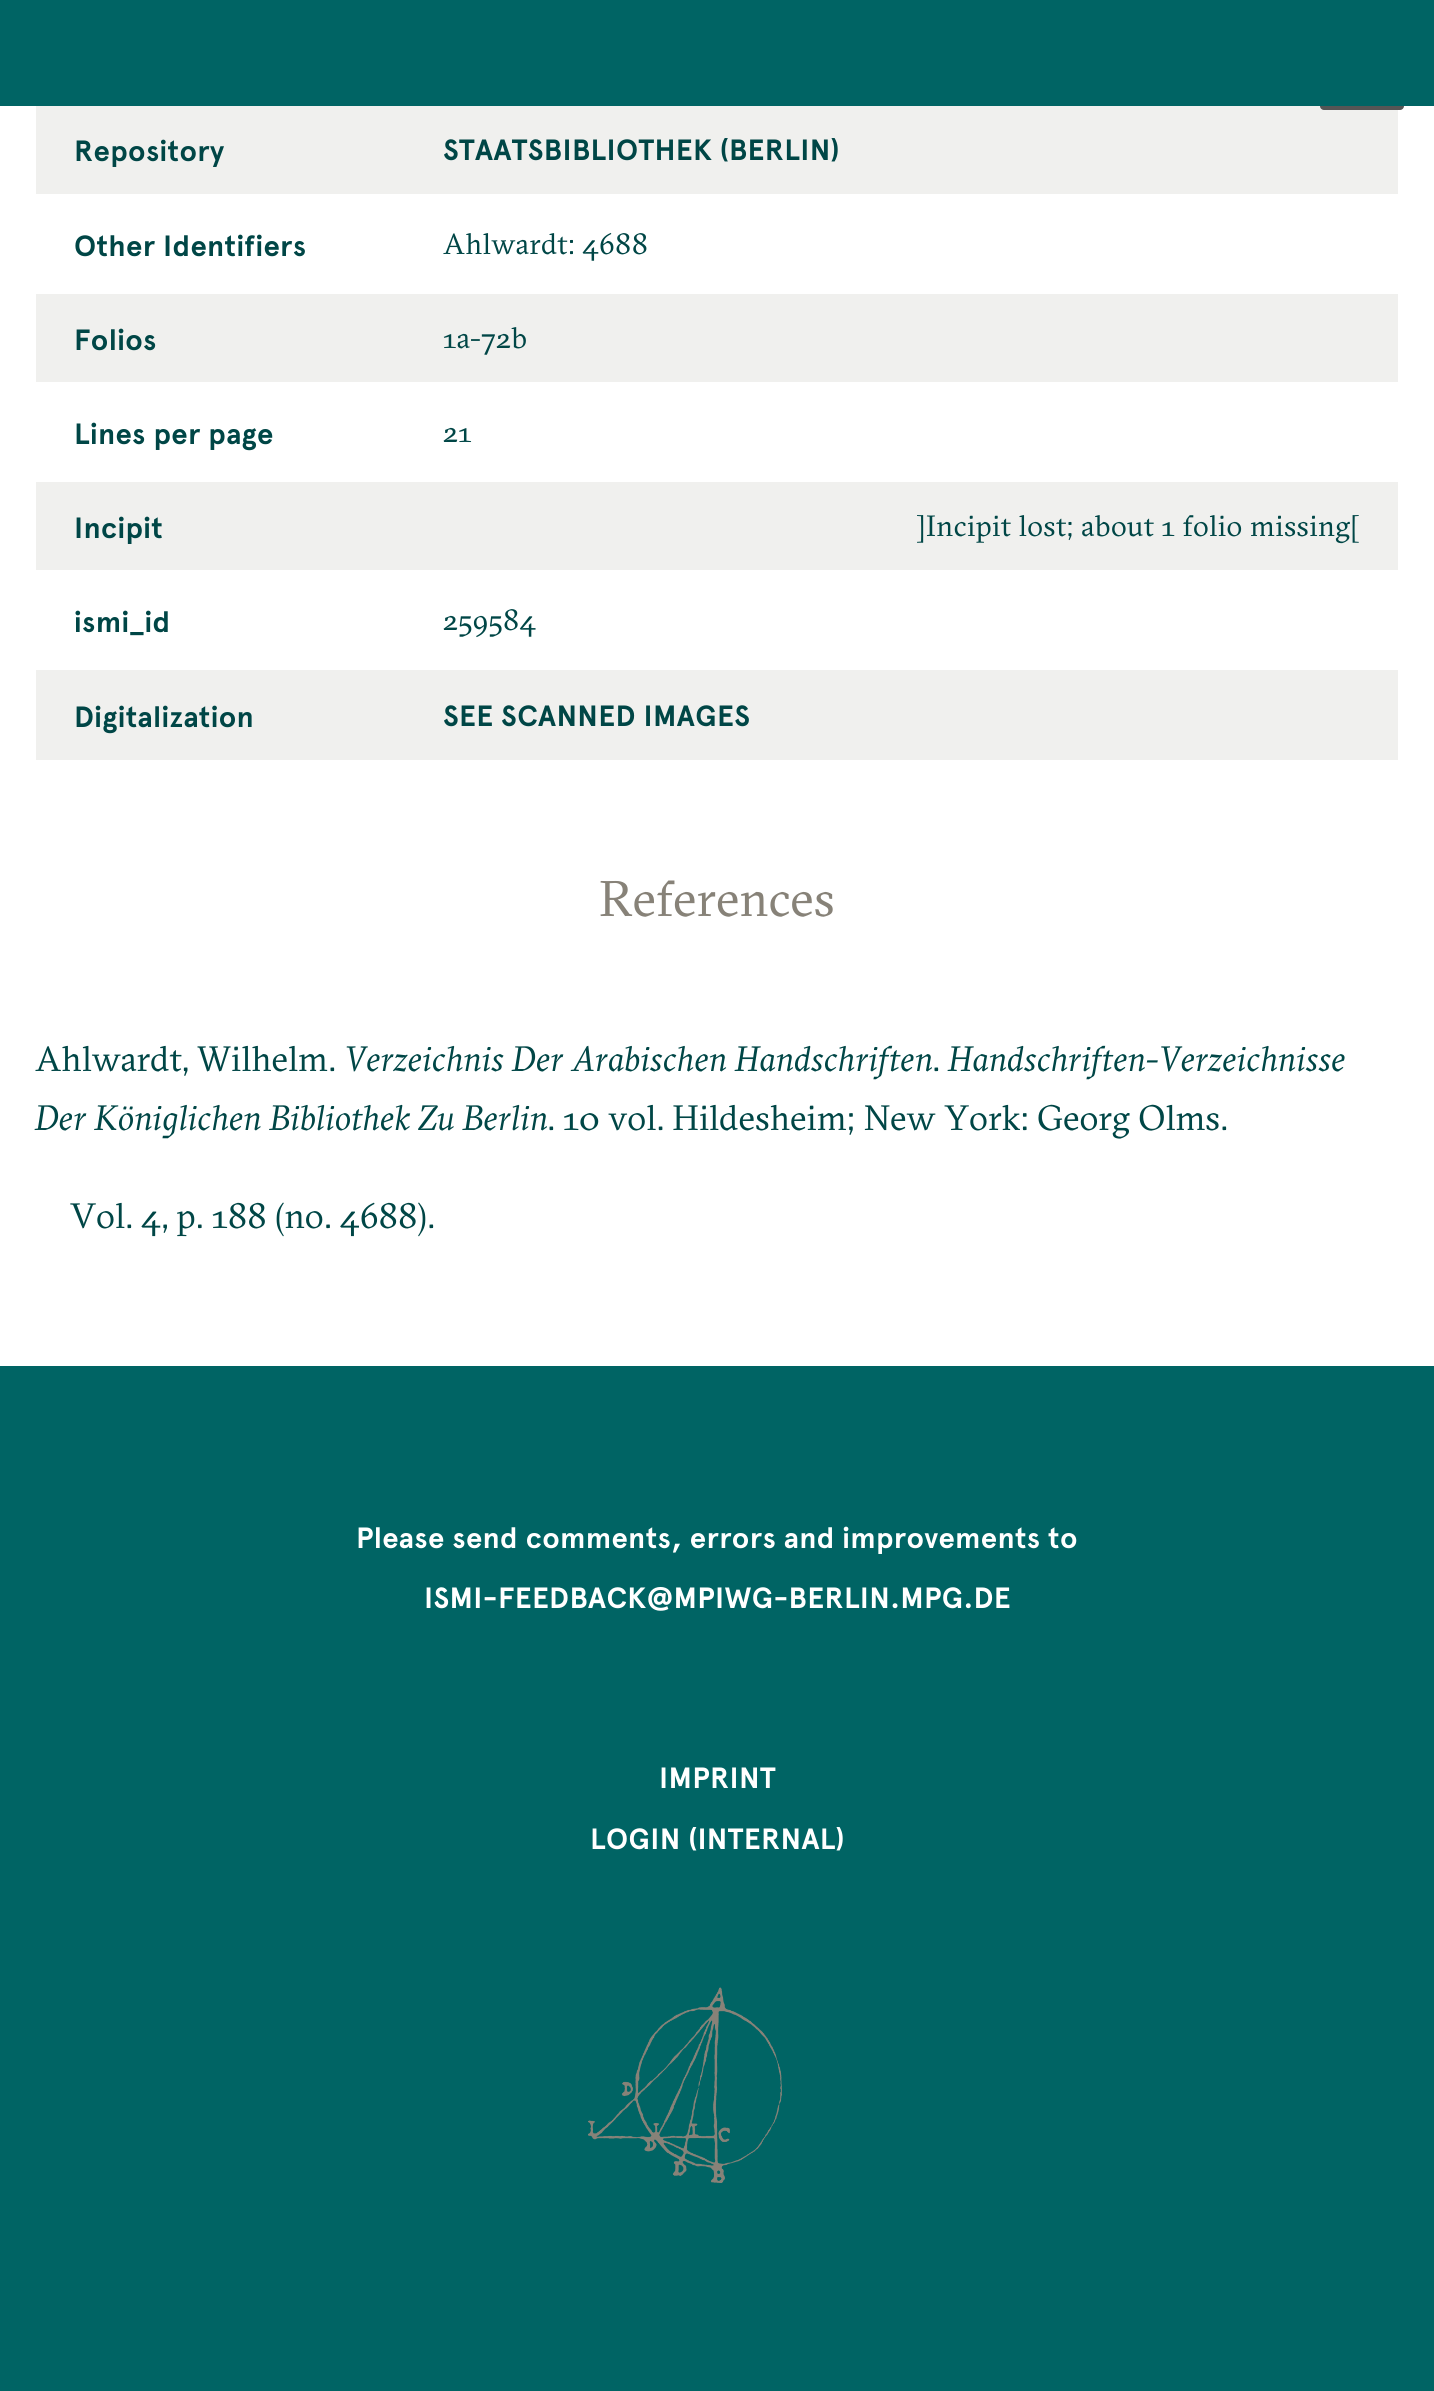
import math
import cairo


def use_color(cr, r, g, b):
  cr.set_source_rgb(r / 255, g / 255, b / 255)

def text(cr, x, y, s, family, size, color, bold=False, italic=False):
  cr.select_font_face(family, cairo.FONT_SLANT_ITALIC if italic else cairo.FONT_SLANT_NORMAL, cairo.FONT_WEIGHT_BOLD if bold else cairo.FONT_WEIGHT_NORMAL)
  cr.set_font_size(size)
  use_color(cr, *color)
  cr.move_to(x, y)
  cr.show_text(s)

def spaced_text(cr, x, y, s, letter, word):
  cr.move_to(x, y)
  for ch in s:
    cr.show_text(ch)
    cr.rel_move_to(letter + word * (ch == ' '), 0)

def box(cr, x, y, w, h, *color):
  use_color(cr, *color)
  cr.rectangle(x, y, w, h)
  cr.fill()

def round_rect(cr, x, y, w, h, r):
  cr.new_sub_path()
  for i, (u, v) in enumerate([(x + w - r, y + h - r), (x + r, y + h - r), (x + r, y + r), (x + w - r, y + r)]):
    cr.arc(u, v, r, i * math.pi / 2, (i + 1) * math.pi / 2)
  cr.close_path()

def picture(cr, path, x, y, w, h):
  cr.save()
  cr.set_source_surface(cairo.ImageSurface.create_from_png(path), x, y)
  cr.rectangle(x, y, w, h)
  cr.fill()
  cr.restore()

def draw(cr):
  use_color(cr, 0, 100, 100)
  cr.paint()
  box(cr, 0, 106, 1434, 1260, 255, 255, 255)
  box(cr, 36, 106, 1362, 88, 240, 240, 238)
  use_color(cr, 85, 85, 85)
  round_rect(cr, 1320, 30, 84, 80, 4)
  cr.fill()
  box(cr, 1320, 30, 84, 76, 0, 100, 100)
  box(cr, 36, 294, 1362, 88, 240, 240, 238)
  box(cr, 36, 482, 1362, 88, 240, 240, 238)
  box(cr, 36, 670, 1362, 90, 240, 240, 238)
  picture(cr, "img_01.png", 588, 1987, 194, 196)
  cr.select_font_face("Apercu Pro", cairo.FONT_SLANT_NORMAL, cairo.FONT_WEIGHT_BOLD)
  cr.set_font_size(29.3)
  use_color(cr, 0, 70, 70)
  spaced_text(cr, 74, 161, "Repository", 0.35, 0)
  spaced_text(cr, 443, 160, "STAATSBIBLIOTHEK (BERLIN)", 0.35, 0)
  spaced_text(cr, 74, 256, "Other Identifiers", 0.35, 0)
  cr.select_font_face("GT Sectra")
  spaced_text(cr, 443, 254, "Ahlwardt: 4688", 0.35, 0)
  cr.select_font_face("Apercu Pro", cairo.FONT_SLANT_NORMAL, cairo.FONT_WEIGHT_BOLD)
  spaced_text(cr, 74, 350, "Folios", 0.35, 0)
  cr.select_font_face("GT Sectra")
  spaced_text(cr, 443, 348, "1a-72b", 0.35, 0)
  cr.select_font_face("Apercu Pro", cairo.FONT_SLANT_NORMAL, cairo.FONT_WEIGHT_BOLD)
  spaced_text(cr, 74, 444, "Lines per page", 0.35, 0)
  cr.select_font_face("GT Sectra")
  spaced_text(cr, 443, 442, "21", 0.35, 0)
  cr.select_font_face("Apercu Pro", cairo.FONT_SLANT_NORMAL, cairo.FONT_WEIGHT_BOLD)
  spaced_text(cr, 74, 538, "Incipit", 0.35, 0)
  cr.select_font_face("GT Sectra")
  spaced_text(cr, 916, 536, "]Incipit lost; about 1 folio missing", 0.35, 0)
  spaced_text(cr, 1350, 536, "[", 0.35, 0)
  cr.select_font_face("Apercu Pro", cairo.FONT_SLANT_NORMAL, cairo.FONT_WEIGHT_BOLD)
  spaced_text(cr, 74, 632, "ismi_id", 0.35, 0)
  cr.select_font_face("GT Sectra")
  spaced_text(cr, 443, 630, "259584", 0.35, 0)
  cr.select_font_face("Apercu Pro", cairo.FONT_SLANT_NORMAL, cairo.FONT_WEIGHT_BOLD)
  spaced_text(cr, 74, 727, "Digitalization", 0.35, 0)
  spaced_text(cr, 443, 726, "SEE SCANNED IMAGES", 0.35, 0)
  text(cr, 599, 916, "References", "GT Sectra", 50, (135, 130, 120))
  text(cr, 35, 1071, "Ahlwardt, Wilhelm.", "GT Sectra", 35.2, (0, 70, 70))
  text(cr, 344, 1071, "Verzeichnis Der Arabischen Handschriften", "GT Sectra", 35.2, (0, 70, 70), italic=True)
  text(cr, 932, 1071, ".", "GT Sectra", 35.2, (0, 70, 70))
  text(cr, 948, 1071, "Handschriften-Verzeichnisse", "GT Sectra", 35.2, (0, 70, 70), italic=True)
  text(cr, 35, 1130, "Der Königlichen Bibliothek Zu Berlin", "GT Sectra", 35.2, (0, 70, 70), italic=True)
  text(cr, 547, 1130, ". 10 vol. Hildesheim; New York: Georg Olms.", "GT Sectra", 35.2, (0, 70, 70))
  text(cr, 70, 1228, "Vol. 4, p. 188 (no. 4688).", "GT Sectra", 35.2, (0, 70, 70))
  cr.select_font_face("Apercu Pro", cairo.FONT_SLANT_NORMAL, cairo.FONT_WEIGHT_BOLD)
  cr.set_font_size(29.3)
  use_color(cr, 255, 255, 255)
  spaced_text(cr, 356, 1548, "Please send comments, errors and improvements to", 0.35, 0)
  spaced_text(cr, 424, 1608, "ISMI-FEEDBACK@MPIWG-BERLIN.MPG.DE", 0.35, 0)
  spaced_text(cr, 659, 1788, "IMPRINT", 0.35, 0)
  spaced_text(cr, 590, 1849, "LOGIN (INTERNAL)", 0.35, 0)


surface = cairo.ImageSurface(cairo.FORMAT_RGB24, 1434, 2391)
cr = cairo.Context(surface)
options = cairo.FontOptions()
options.set_hint_metrics(cairo.HINT_METRICS_OFF)
options.set_hint_style(cairo.HINT_STYLE_NONE)
cr.set_font_options(options)
cr.set_miter_limit(4)
draw(cr)
surface.write_to_png("out.png")
